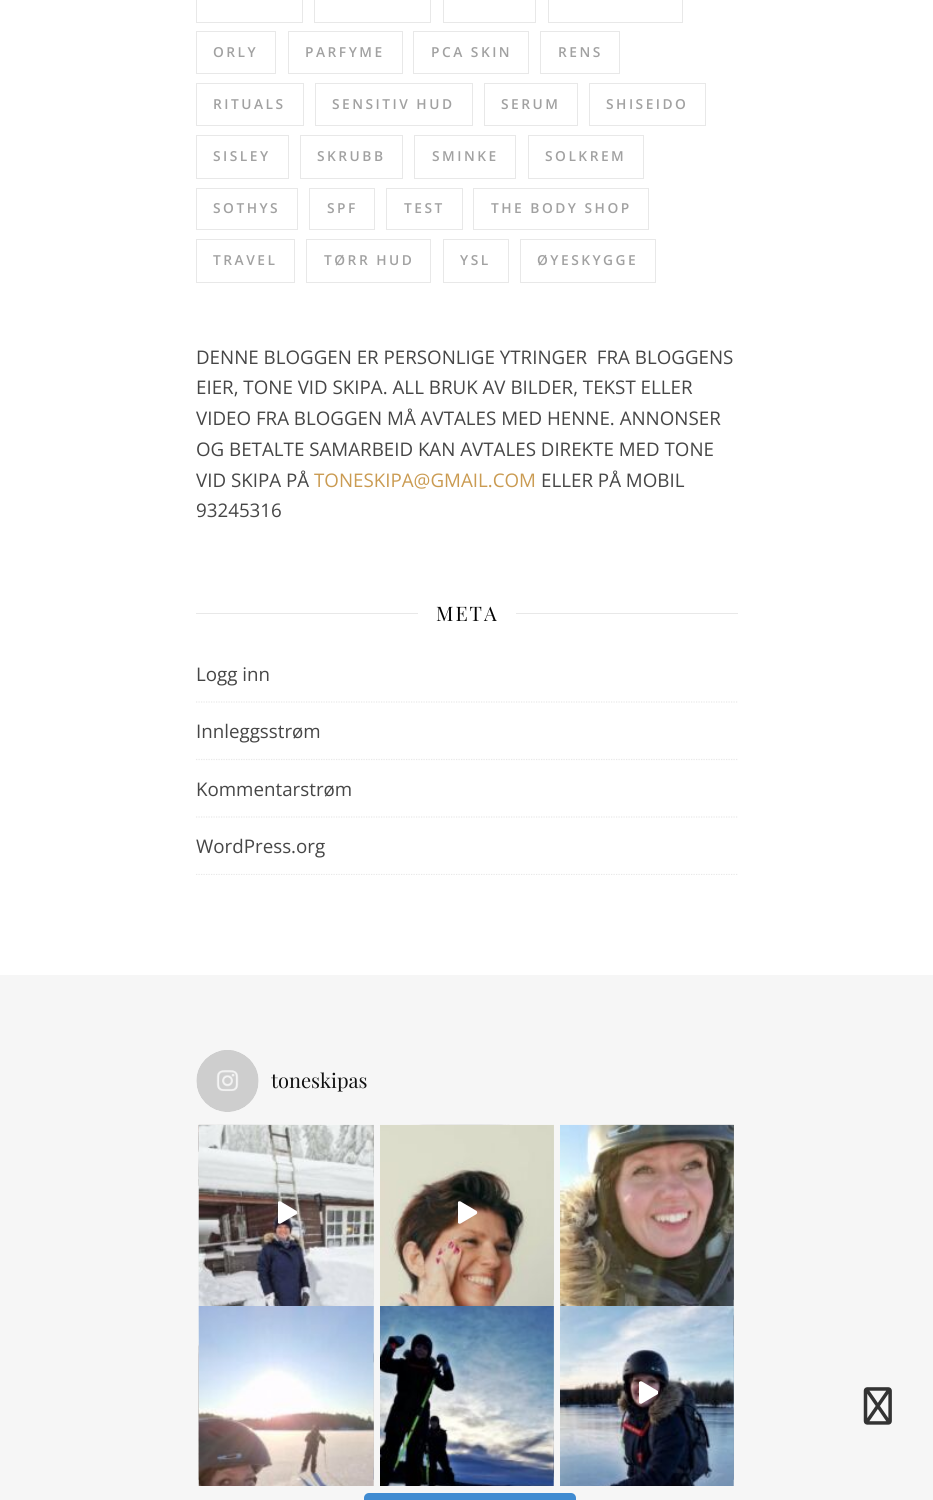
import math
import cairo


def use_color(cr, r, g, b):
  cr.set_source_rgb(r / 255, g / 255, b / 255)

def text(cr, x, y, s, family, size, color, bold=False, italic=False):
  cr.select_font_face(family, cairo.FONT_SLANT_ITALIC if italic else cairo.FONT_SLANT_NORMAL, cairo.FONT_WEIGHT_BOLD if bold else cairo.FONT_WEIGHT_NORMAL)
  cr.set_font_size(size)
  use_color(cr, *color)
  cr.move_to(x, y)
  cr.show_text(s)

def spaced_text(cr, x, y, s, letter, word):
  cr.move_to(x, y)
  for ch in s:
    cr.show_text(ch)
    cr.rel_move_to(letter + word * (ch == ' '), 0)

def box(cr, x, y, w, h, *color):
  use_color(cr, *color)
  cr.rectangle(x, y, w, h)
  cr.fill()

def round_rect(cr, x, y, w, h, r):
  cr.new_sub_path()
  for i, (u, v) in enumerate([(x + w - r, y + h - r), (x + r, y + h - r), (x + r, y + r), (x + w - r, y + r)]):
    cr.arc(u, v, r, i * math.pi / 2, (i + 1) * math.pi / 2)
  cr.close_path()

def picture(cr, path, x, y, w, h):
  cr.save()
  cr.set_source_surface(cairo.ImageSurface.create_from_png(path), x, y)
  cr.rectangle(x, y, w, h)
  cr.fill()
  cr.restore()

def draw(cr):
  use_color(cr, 255, 255, 255)
  cr.paint()
  cr.rectangle(196.5, -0.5, 106, 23)
  use_color(cr, 232, 232, 232)
  cr.set_line_width(1)
  cr.stroke()
  cr.rectangle(314.5, -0.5, 116, 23)
  cr.stroke()
  cr.rectangle(443.5, -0.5, 92, 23)
  cr.stroke()
  cr.rectangle(548.5, -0.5, 134, 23)
  cr.stroke()
  cr.rectangle(196.5, 31.5, 79, 42)
  cr.stroke()
  cr.rectangle(288.5, 31.5, 114, 42)
  cr.stroke()
  cr.rectangle(413.5, 31.5, 115, 42)
  cr.stroke()
  cr.rectangle(540.5, 31.5, 79, 42)
  cr.stroke()
  cr.rectangle(196.5, 83.5, 107, 42)
  cr.stroke()
  cr.rectangle(315.5, 83.5, 157, 42)
  cr.stroke()
  cr.rectangle(484.5, 83.5, 93, 42)
  cr.stroke()
  cr.rectangle(589.5, 83.5, 116, 42)
  cr.stroke()
  cr.rectangle(196.5, 135.5, 92, 43)
  cr.stroke()
  cr.rectangle(300.5, 135.5, 102, 43)
  cr.stroke()
  cr.rectangle(414.5, 135.5, 101, 43)
  cr.stroke()
  cr.rectangle(528.5, 135.5, 115, 43)
  cr.stroke()
  cr.rectangle(196.5, 188.5, 101, 41)
  cr.stroke()
  cr.rectangle(309.5, 188.5, 65, 41)
  cr.stroke()
  cr.rectangle(386.5, 188.5, 76, 41)
  cr.stroke()
  cr.rectangle(473.5, 188.5, 175, 41)
  cr.stroke()
  cr.rectangle(196.5, 239.5, 98, 43)
  cr.stroke()
  cr.rectangle(306.5, 239.5, 124, 43)
  cr.stroke()
  cr.rectangle(443.5, 239.5, 65, 43)
  cr.stroke()
  cr.rectangle(520.5, 239.5, 135, 43)
  cr.stroke()
  box(cr, 196, 613, 222, 1, 232, 232, 232)
  box(cr, 516, 613, 222, 1, 232, 232, 232)
  cr.new_path()
  cr.move_to(196, 702)
  cr.line_to(737.5, 702)
  cr.set_line_width(1.2)
  cr.set_dash([1.25, 1.25])
  cr.stroke()
  cr.new_path()
  cr.move_to(196, 759.5)
  cr.line_to(737.5, 759.5)
  cr.stroke()
  cr.new_path()
  cr.move_to(196, 817)
  cr.line_to(737.5, 817)
  cr.stroke()
  cr.save()
  cr.rectangle(196, 594, 542, 281)
  cr.clip()
  cr.new_path()
  cr.move_to(196, 874.5)
  cr.line_to(737.5, 874.5)
  cr.stroke()
  cr.restore()
  box(cr, 0, 975, 933, 525, 246, 246, 246)
  picture(cr, "img_01.png", 196, 1050, 63, 62)
  picture(cr, "img_02.png", 198, 1124, 176, 176)
  picture(cr, "img_03.png", 198, 1124, 176, 182)
  picture(cr, "img_04.png", 278, 1201, 20, 23)
  picture(cr, "img_05.png", 380, 1124, 174, 176)
  picture(cr, "img_06.png", 380, 1125, 174, 181)
  picture(cr, "img_07.png", 458, 1201, 20, 23)
  picture(cr, "img_08.png", 560, 1124, 174, 176)
  picture(cr, "img_09.png", 560, 1124, 174, 182)
  picture(cr, "img_10.png", 198, 1306, 176, 174)
  picture(cr, "img_11.png", 198, 1306, 176, 180)
  picture(cr, "img_12.png", 553, 1306, 1, 174)
  picture(cr, "img_13.png", 380, 1306, 174, 180)
  picture(cr, "img_14.png", 733, 1306, 1, 174)
  picture(cr, "img_15.png", 560, 1306, 174, 180)
  picture(cr, "img_16.png", 639, 1381, 19, 23)
  use_color(cr, 64, 139, 209)
  round_rect(cr, 364, 1493, 212, 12, 5)
  cr.fill()
  picture(cr, "img_17.png", 863, 1387, 29, 38)
  cr.select_font_face("Open Sans SemiBold")
  cr.set_font_size(13.75)
  use_color(cr, 161, 161, 161)
  spaced_text(cr, 213, 57, "ORLY", 2.5, 0)
  spaced_text(cr, 305, 57, "PARFYME", 2.5, 0)
  spaced_text(cr, 431, 57, "PCA SKIN", 2.5, 0)
  spaced_text(cr, 558, 57, "RENS", 2.5, 0)
  spaced_text(cr, 213, 109, "RITUALS", 2.5, 0)
  spaced_text(cr, 332, 109, "SENSITIV HUD", 2.5, 0)
  spaced_text(cr, 501, 109, "SERUM", 2.5, 0)
  spaced_text(cr, 606, 109, "SHISEIDO", 2.5, 0)
  spaced_text(cr, 213, 161, "SISLEY", 2.5, 0)
  spaced_text(cr, 317, 161, "SKRUBB", 2.5, 0)
  spaced_text(cr, 432, 161, "SMINKE", 2.5, 0)
  spaced_text(cr, 545, 161, "SOLKREM", 2.5, 0)
  spaced_text(cr, 213, 213, "SOTHYS", 2.5, 0)
  spaced_text(cr, 327, 213, "SPF", 2.5, 0)
  spaced_text(cr, 404, 213, "TEST", 2.5, 0)
  spaced_text(cr, 491, 213, "THE BODY SHOP", 2.5, 0)
  spaced_text(cr, 213, 265, "TRAVEL", 2.5, 0)
  spaced_text(cr, 324, 265, "TØRR HUD", 2.5, 0)
  spaced_text(cr, 460, 265, "YSL", 2.5, 0)
  spaced_text(cr, 537, 265, "ØYESKYGGE", 2.5, 0)
  text(cr, 196, 364, "DENNE BLOGGEN ER PERSONLIGE YTRINGER  FRA BLOGGENS", "Open Sans", 18.75, (70, 70, 70))
  text(cr, 196, 394, "EIER, TONE VID SKIPA. ALL BRUK AV BILDER, TEKST ELLER", "Open Sans", 18.75, (70, 70, 70))
  text(cr, 196, 425, "VIDEO FRA BLOGGEN MÅ AVTALES MED HENNE. ANNONSER", "Open Sans", 18.75, (70, 70, 70))
  text(cr, 196, 456, "OG BETALTE SAMARBEID KAN AVTALES DIREKTE MED TONE", "Open Sans", 18.75, (70, 70, 70))
  text(cr, 196, 487, "VID SKIPA PÅ", "Open Sans", 18.75, (70, 70, 70))
  text(cr, 314, 487, "TONESKIPA@GMAIL.COM", "Open Sans", 18.75, (202, 155, 82))
  text(cr, 541, 487, "ELLER PÅ MOBIL", "Open Sans", 18.75, (70, 70, 70))
  text(cr, 196, 517, "93245316", "Open Sans", 18.75, (70, 70, 70))
  cr.select_font_face("Playfair Display")
  cr.set_font_size(20)
  use_color(cr, 3, 3, 3)
  spaced_text(cr, 436, 621, "META", 2, 0)
  text(cr, 196, 681, "Logg inn", "Open Sans", 18.75, (70, 70, 70))
  text(cr, 196, 738, "Innleggsstrøm", "Open Sans", 18.75, (70, 70, 70))
  text(cr, 196, 796, "Kommentarstrøm", "Open Sans", 18.75, (70, 70, 70))
  text(cr, 196, 853, "WordPress.org", "Open Sans", 18.75, (70, 70, 70))
  text(cr, 271, 1088, "toneskipas", "Playfair Display", 20, (17, 17, 17))


surface = cairo.ImageSurface(cairo.FORMAT_RGB24, 933, 1500)
cr = cairo.Context(surface)
options = cairo.FontOptions()
options.set_hint_metrics(cairo.HINT_METRICS_OFF)
options.set_hint_style(cairo.HINT_STYLE_NONE)
cr.set_font_options(options)
cr.set_miter_limit(4)
draw(cr)
surface.write_to_png("out.png")
